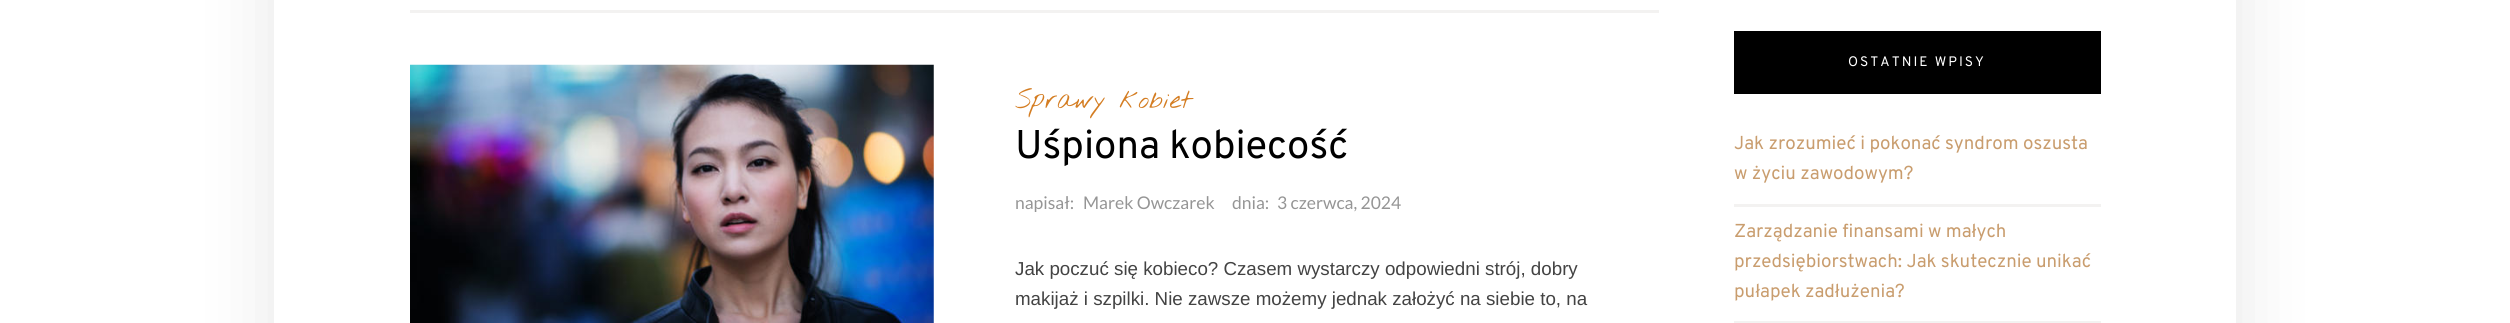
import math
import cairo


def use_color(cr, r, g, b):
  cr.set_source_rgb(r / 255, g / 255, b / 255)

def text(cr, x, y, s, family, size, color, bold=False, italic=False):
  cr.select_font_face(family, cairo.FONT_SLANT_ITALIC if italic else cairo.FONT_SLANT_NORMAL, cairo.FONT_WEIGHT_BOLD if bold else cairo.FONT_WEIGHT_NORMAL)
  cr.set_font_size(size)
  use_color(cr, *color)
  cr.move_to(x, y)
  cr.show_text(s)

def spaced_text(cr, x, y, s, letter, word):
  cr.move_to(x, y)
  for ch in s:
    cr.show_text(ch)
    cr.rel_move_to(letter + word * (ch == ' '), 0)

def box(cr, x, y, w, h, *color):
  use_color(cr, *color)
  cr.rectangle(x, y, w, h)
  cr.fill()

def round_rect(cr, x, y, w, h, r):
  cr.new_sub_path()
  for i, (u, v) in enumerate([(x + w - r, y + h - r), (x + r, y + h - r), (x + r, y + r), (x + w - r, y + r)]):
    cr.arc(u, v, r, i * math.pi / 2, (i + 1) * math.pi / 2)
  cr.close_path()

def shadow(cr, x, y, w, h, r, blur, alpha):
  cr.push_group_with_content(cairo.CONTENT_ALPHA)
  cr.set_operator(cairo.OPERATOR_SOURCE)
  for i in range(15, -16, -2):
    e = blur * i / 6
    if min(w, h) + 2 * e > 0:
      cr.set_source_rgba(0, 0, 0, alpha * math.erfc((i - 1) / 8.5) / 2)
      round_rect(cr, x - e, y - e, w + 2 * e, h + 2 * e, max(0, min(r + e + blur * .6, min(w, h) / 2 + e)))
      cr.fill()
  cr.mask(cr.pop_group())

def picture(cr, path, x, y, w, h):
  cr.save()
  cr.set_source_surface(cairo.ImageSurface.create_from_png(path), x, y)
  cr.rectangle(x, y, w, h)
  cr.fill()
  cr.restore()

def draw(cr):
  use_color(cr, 255, 255, 255)
  cr.paint()
  cr.save()
  cr.set_fill_rule(cairo.FILL_RULE_EVEN_ODD)
  cr.new_path()
  cr.move_to(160, 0)
  cr.line_to(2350, 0)
  cr.line_to(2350, 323)
  cr.line_to(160, 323)
  cr.close_path()
  cr.move_to(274, -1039)
  cr.line_to(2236, -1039)
  cr.line_to(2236, 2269)
  cr.line_to(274, 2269)
  cr.close_path()
  cr.clip()
  use_color(cr, 0, 0, 0)
  shadow(cr, 274, -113, 1962, 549, 0, 37.5, 0.1)
  cr.restore()
  box(cr, 410, 10, 1249, 3, 243, 242, 241)
  picture(cr, "img_01.png", 410, 64, 524, 259)
  box(cr, 1734, 31, 367, 63, 0, 0, 0)
  box(cr, 1734, 204, 367, 3, 243, 242, 241)
  box(cr, 1734, 321, 367, 2, 243, 242, 241)
  text(cr, 1015, 108, "Sprawy kobiet", "Nothing You Could Do Thin", 26.25, (212, 125, 34))
  text(cr, 1015, 158, "Uśpiona kobiecość", "Overpass", 40, (0, 0, 0))
  text(cr, 1015, 209, "napisał:", "Lato", 17.5, (149, 149, 149))
  text(cr, 1083, 209, "Marek Owczarek", "Lato", 17.5, (149, 149, 149))
  text(cr, 1232, 209, "dnia:", "Lato", 17.5, (149, 149, 149))
  text(cr, 1277, 209, "3 czerwca, 2024", "Lato", 17.5, (149, 149, 149))
  text(cr, 1015, 275, "Jak poczuć się kobieco? Czasem wystarczy odpowiedni strój, dobry", "Liberation Sans", 18.75, (67, 67, 67))
  text(cr, 1015, 305, "makijaż i szpilki. Nie zawsze możemy jednak założyć na siebie to, na", "Liberation Sans", 18.75, (67, 67, 67))
  cr.select_font_face("Overpass")
  cr.set_font_size(13.75)
  use_color(cr, 255, 255, 255)
  spaced_text(cr, 1848, 66, "OSTATNIE WPISY", 2, 0)
  text(cr, 1734, 149, "Jak zrozumieć i pokonać syndrom oszusta", "Overpass", 18.75, (201, 157, 110))
  text(cr, 1734, 179, "w życiu zawodowym?", "Overpass", 18.75, (201, 157, 110))
  text(cr, 1734, 237, "Zarządzanie finansami w małych", "Overpass", 18.75, (201, 157, 110))
  text(cr, 1734, 267, "przedsiębiorstwach: Jak skutecznie unikać", "Overpass", 18.75, (201, 157, 110))
  text(cr, 1734, 297, "pułapek zadłużenia?", "Overpass", 18.75, (201, 157, 110))


surface = cairo.ImageSurface(cairo.FORMAT_RGB24, 2510, 323)
cr = cairo.Context(surface)
options = cairo.FontOptions()
options.set_hint_metrics(cairo.HINT_METRICS_OFF)
options.set_hint_style(cairo.HINT_STYLE_NONE)
cr.set_font_options(options)
cr.set_miter_limit(4)
draw(cr)
surface.write_to_png("out.png")
